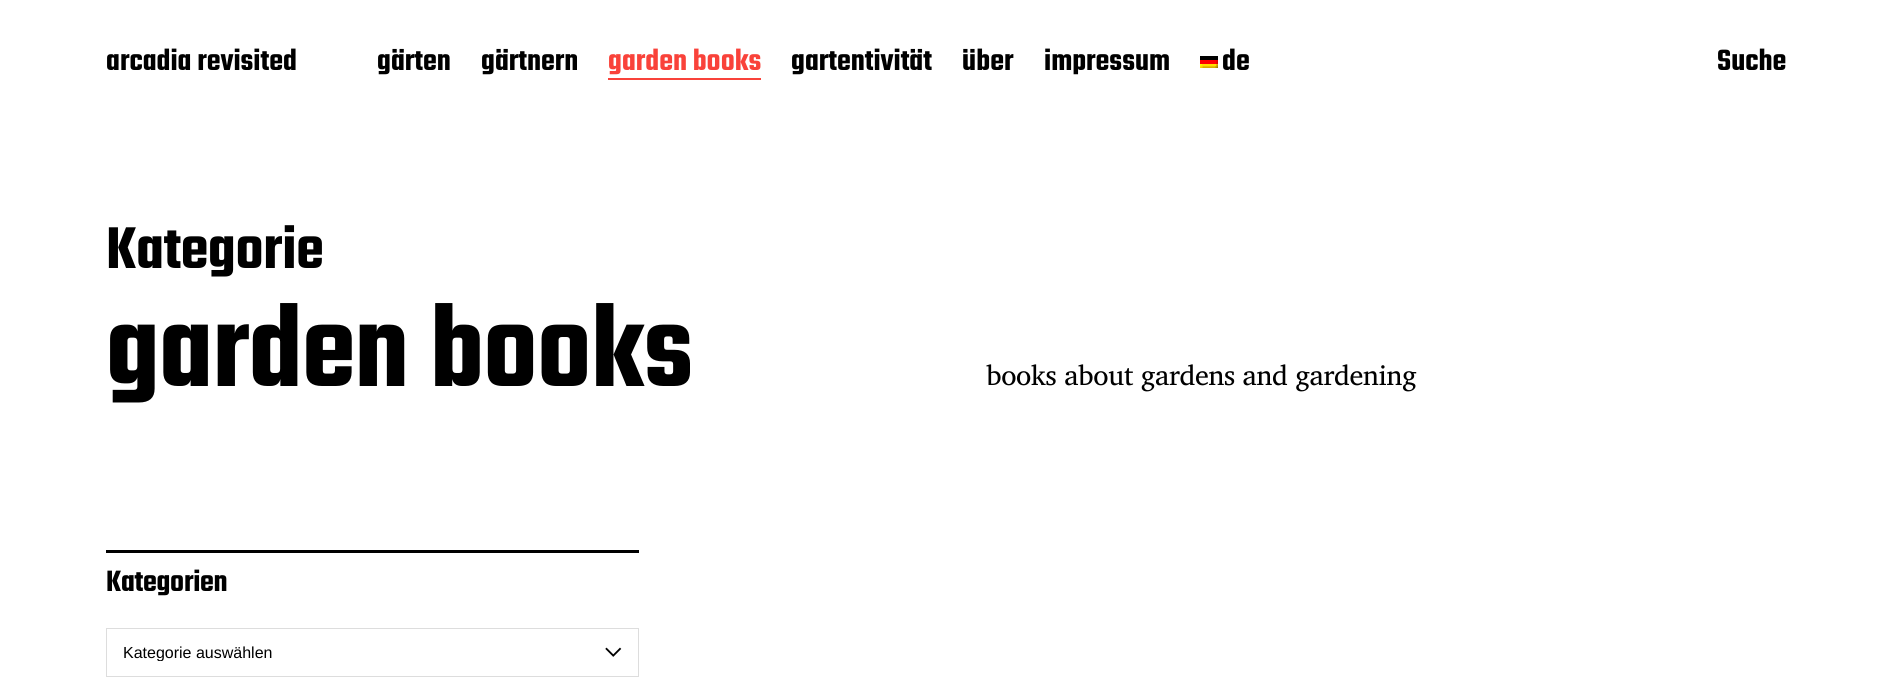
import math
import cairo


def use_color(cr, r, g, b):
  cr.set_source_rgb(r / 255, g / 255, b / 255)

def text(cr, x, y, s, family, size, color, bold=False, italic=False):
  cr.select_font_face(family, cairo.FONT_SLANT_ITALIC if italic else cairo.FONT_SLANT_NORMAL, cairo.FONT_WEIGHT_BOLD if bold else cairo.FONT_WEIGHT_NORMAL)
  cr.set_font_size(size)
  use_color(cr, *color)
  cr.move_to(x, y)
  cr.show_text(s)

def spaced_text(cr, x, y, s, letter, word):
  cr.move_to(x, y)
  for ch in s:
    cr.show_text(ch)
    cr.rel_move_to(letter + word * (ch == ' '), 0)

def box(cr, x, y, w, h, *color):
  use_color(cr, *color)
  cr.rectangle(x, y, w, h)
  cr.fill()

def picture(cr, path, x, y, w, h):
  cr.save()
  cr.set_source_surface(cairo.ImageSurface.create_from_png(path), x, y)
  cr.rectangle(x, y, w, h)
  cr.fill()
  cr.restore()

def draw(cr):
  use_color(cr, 255, 255, 255)
  cr.paint()
  box(cr, 608, 78, 153, 2, 249, 66, 58)
  picture(cr, "img_01.png", 1200, 56, 18, 12)
  box(cr, 106, 550, 533, 3, 0, 0, 0)
  picture(cr, "img_02.png", 605, 647, 17, 10)
  cr.rectangle(106.5, 628.5, 532, 48)
  use_color(cr, 221, 221, 221)
  cr.set_line_width(1)
  cr.stroke()
  text(cr, 106, 70, "arcadia revisited", "Teko SemiBold", 32, (0, 0, 0))
  text(cr, 377, 70, "gärten", "Teko SemiBold", 32, (0, 0, 0))
  text(cr, 481, 70, "gärtnern", "Teko SemiBold", 32, (0, 0, 0))
  text(cr, 608, 70, "garden books", "Teko SemiBold", 32, (249, 66, 58))
  text(cr, 791, 70, "gartentivität", "Teko SemiBold", 32, (0, 0, 0))
  text(cr, 962, 70, "über", "Teko SemiBold", 32, (0, 0, 0))
  text(cr, 1044, 70, "impressum", "Teko SemiBold", 32, (0, 0, 0))
  text(cr, 1222, 70, "de", "Teko SemiBold", 32, (0, 0, 0))
  text(cr, 1717, 70, "Suche", "Teko SemiBold", 32, (0, 0, 0))
  cr.set_font_size(64)
  spaced_text(cr, 106, 268, "Kategorie", -0.25, 0)
  cr.set_font_size(124)
  spaced_text(cr, 106, 386, "garden books", -0.6, 0)
  cr.select_font_face("Charis SIL")
  cr.set_font_size(28)
  spaced_text(cr, 986, 385, "books about gardens and gardening", -0.35, 0)
  cr.select_font_face("Teko SemiBold")
  cr.set_font_size(32)
  spaced_text(cr, 106, 591, "Kategorien", -0.25, 0)
  cr.save()
  cr.rectangle(123, 644, 475, 17)
  cr.clip()
  text(cr, 123, 658, "Kategorie auswählen", "Liberation Sans", 16, (0, 0, 0))
  cr.restore()


surface = cairo.ImageSurface(cairo.FORMAT_RGB24, 1892, 696)
cr = cairo.Context(surface)
options = cairo.FontOptions()
options.set_hint_metrics(cairo.HINT_METRICS_OFF)
options.set_hint_style(cairo.HINT_STYLE_NONE)
cr.set_font_options(options)
cr.set_miter_limit(4)
draw(cr)
surface.write_to_png("out.png")
